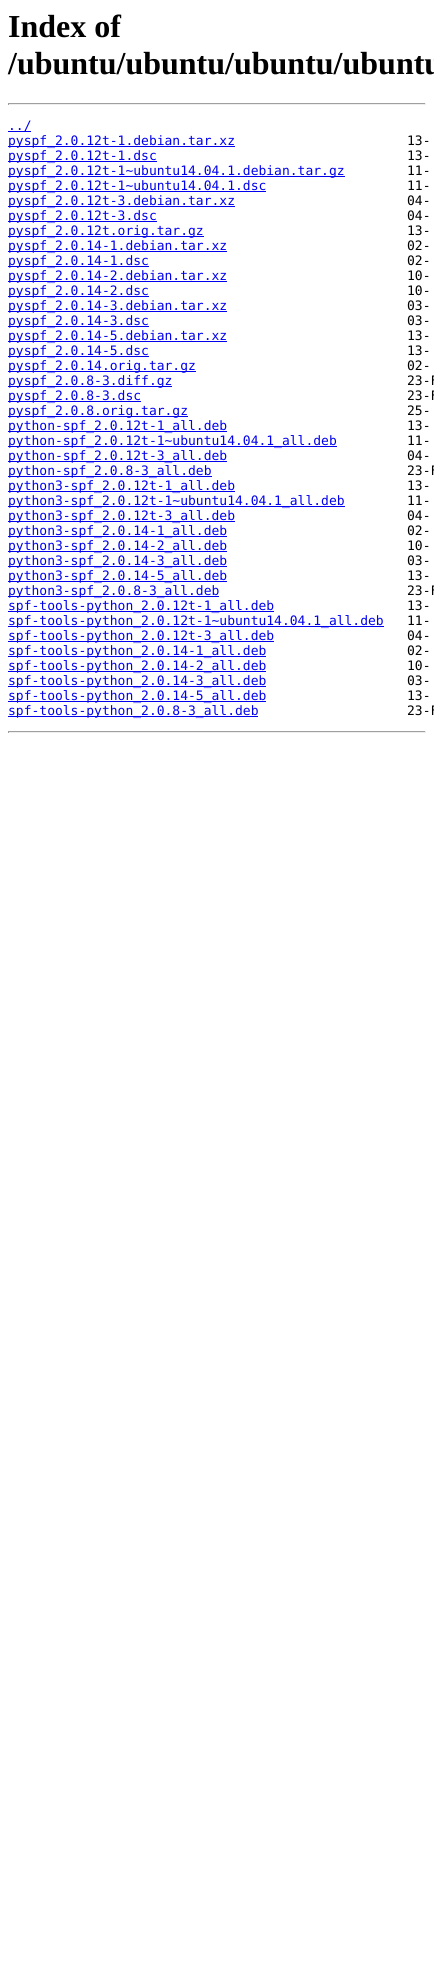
import math
import cairo


def use_color(cr, r, g, b):
  cr.set_source_rgb(r / 255, g / 255, b / 255)

def text(cr, x, y, s, family, size, color, bold=False, italic=False):
  cr.select_font_face(family, cairo.FONT_SLANT_ITALIC if italic else cairo.FONT_SLANT_NORMAL, cairo.FONT_WEIGHT_BOLD if bold else cairo.FONT_WEIGHT_NORMAL)
  cr.set_font_size(size)
  use_color(cr, *color)
  cr.move_to(x, y)
  cr.show_text(s)

def box(cr, x, y, w, h, *color):
  use_color(cr, *color)
  cr.rectangle(x, y, w, h)
  cr.fill()

def draw(cr):
  use_color(cr, 255, 255, 255)
  cr.paint()
  box(cr, 8, 103, 418, 1, 159, 159, 159)
  box(cr, 425, 103, 1, 2, 238, 238, 238)
  box(cr, 8, 104, 418, 1, 238, 238, 238)
  box(cr, 8, 103, 1, 2, 159, 159, 159)
  box(cr, 8, 131, 23, 1, 0, 0, 238)
  box(cr, 8, 146, 227, 1, 0, 0, 238)
  box(cr, 8, 161, 149, 1, 0, 0, 238)
  box(cr, 8, 176, 337, 1, 0, 0, 238)
  box(cr, 8, 191, 258, 1, 0, 0, 238)
  box(cr, 8, 206, 227, 1, 0, 0, 238)
  box(cr, 8, 221, 149, 1, 0, 0, 238)
  box(cr, 8, 236, 196, 1, 0, 0, 238)
  box(cr, 8, 251, 219, 1, 0, 0, 238)
  box(cr, 8, 266, 141, 1, 0, 0, 238)
  box(cr, 8, 281, 219, 1, 0, 0, 238)
  box(cr, 8, 296, 141, 1, 0, 0, 238)
  box(cr, 8, 311, 219, 1, 0, 0, 238)
  box(cr, 8, 326, 141, 1, 0, 0, 238)
  box(cr, 8, 341, 219, 1, 0, 0, 238)
  box(cr, 8, 356, 141, 1, 0, 0, 238)
  box(cr, 8, 371, 188, 1, 0, 0, 238)
  box(cr, 8, 386, 164, 1, 0, 0, 238)
  box(cr, 8, 401, 133, 1, 0, 0, 238)
  box(cr, 8, 416, 180, 1, 0, 0, 238)
  box(cr, 8, 431, 219, 1, 0, 0, 238)
  box(cr, 8, 446, 329, 1, 0, 0, 238)
  box(cr, 8, 461, 219, 1, 0, 0, 238)
  box(cr, 8, 476, 204, 1, 0, 0, 238)
  box(cr, 8, 491, 227, 1, 0, 0, 238)
  box(cr, 8, 506, 337, 1, 0, 0, 238)
  box(cr, 8, 521, 227, 1, 0, 0, 238)
  box(cr, 8, 536, 219, 1, 0, 0, 238)
  box(cr, 8, 551, 219, 1, 0, 0, 238)
  box(cr, 8, 566, 219, 1, 0, 0, 238)
  box(cr, 8, 581, 219, 1, 0, 0, 238)
  box(cr, 8, 596, 211, 1, 0, 0, 238)
  box(cr, 8, 611, 266, 1, 0, 0, 238)
  box(cr, 8, 626, 376, 1, 0, 0, 238)
  box(cr, 8, 641, 266, 1, 0, 0, 238)
  box(cr, 8, 656, 258, 1, 0, 0, 238)
  box(cr, 8, 671, 258, 1, 0, 0, 238)
  box(cr, 8, 686, 258, 1, 0, 0, 238)
  box(cr, 8, 701, 258, 1, 0, 0, 238)
  box(cr, 8, 716, 250, 1, 0, 0, 238)
  box(cr, 8, 731, 418, 1, 159, 159, 159)
  box(cr, 425, 731, 1, 2, 238, 238, 238)
  box(cr, 8, 732, 418, 1, 238, 238, 238)
  box(cr, 8, 731, 1, 2, 159, 159, 159)
  text(cr, 8, 37, "Index of", "Liberation Serif", 32, (0, 0, 0), bold=True)
  text(cr, 8, 74, "/ubuntu/ubuntu/ubuntu/ubuntu", "Liberation Serif", 32, (0, 0, 0), bold=True)
  text(cr, 8, 130, "../", "DejaVu Sans Mono", 13, (0, 0, 238))
  text(cr, 8, 145, "pyspf_2.0.12t-1.debian.tar.xz", "DejaVu Sans Mono", 13, (0, 0, 238))
  text(cr, 407, 145, "13-", "DejaVu Sans Mono", 13, (0, 0, 0))
  text(cr, 8, 160, "pyspf_2.0.12t-1.dsc", "DejaVu Sans Mono", 13, (0, 0, 238))
  text(cr, 407, 160, "13-", "DejaVu Sans Mono", 13, (0, 0, 0))
  text(cr, 8, 175, "pyspf_2.0.12t-1~ubuntu14.04.1.debian.tar.gz", "DejaVu Sans Mono", 13, (0, 0, 238))
  text(cr, 407, 175, "11-", "DejaVu Sans Mono", 13, (0, 0, 0))
  text(cr, 8, 190, "pyspf_2.0.12t-1~ubuntu14.04.1.dsc", "DejaVu Sans Mono", 13, (0, 0, 238))
  text(cr, 407, 190, "11-", "DejaVu Sans Mono", 13, (0, 0, 0))
  text(cr, 8, 205, "pyspf_2.0.12t-3.debian.tar.xz", "DejaVu Sans Mono", 13, (0, 0, 238))
  text(cr, 407, 205, "04-", "DejaVu Sans Mono", 13, (0, 0, 0))
  text(cr, 8, 220, "pyspf_2.0.12t-3.dsc", "DejaVu Sans Mono", 13, (0, 0, 238))
  text(cr, 407, 220, "04-", "DejaVu Sans Mono", 13, (0, 0, 0))
  text(cr, 8, 235, "pyspf_2.0.12t.orig.tar.gz", "DejaVu Sans Mono", 13, (0, 0, 238))
  text(cr, 407, 235, "13-", "DejaVu Sans Mono", 13, (0, 0, 0))
  text(cr, 8, 250, "pyspf_2.0.14-1.debian.tar.xz", "DejaVu Sans Mono", 13, (0, 0, 238))
  text(cr, 407, 250, "02-", "DejaVu Sans Mono", 13, (0, 0, 0))
  text(cr, 8, 265, "pyspf_2.0.14-1.dsc", "DejaVu Sans Mono", 13, (0, 0, 238))
  text(cr, 407, 265, "02-", "DejaVu Sans Mono", 13, (0, 0, 0))
  text(cr, 8, 280, "pyspf_2.0.14-2.debian.tar.xz", "DejaVu Sans Mono", 13, (0, 0, 238))
  text(cr, 407, 280, "10-", "DejaVu Sans Mono", 13, (0, 0, 0))
  text(cr, 8, 295, "pyspf_2.0.14-2.dsc", "DejaVu Sans Mono", 13, (0, 0, 238))
  text(cr, 407, 295, "10-", "DejaVu Sans Mono", 13, (0, 0, 0))
  text(cr, 8, 310, "pyspf_2.0.14-3.debian.tar.xz", "DejaVu Sans Mono", 13, (0, 0, 238))
  text(cr, 407, 310, "03-", "DejaVu Sans Mono", 13, (0, 0, 0))
  text(cr, 8, 325, "pyspf_2.0.14-3.dsc", "DejaVu Sans Mono", 13, (0, 0, 238))
  text(cr, 407, 325, "03-", "DejaVu Sans Mono", 13, (0, 0, 0))
  text(cr, 8, 340, "pyspf_2.0.14-5.debian.tar.xz", "DejaVu Sans Mono", 13, (0, 0, 238))
  text(cr, 407, 340, "13-", "DejaVu Sans Mono", 13, (0, 0, 0))
  text(cr, 8, 355, "pyspf_2.0.14-5.dsc", "DejaVu Sans Mono", 13, (0, 0, 238))
  text(cr, 407, 355, "13-", "DejaVu Sans Mono", 13, (0, 0, 0))
  text(cr, 8, 370, "pyspf_2.0.14.orig.tar.gz", "DejaVu Sans Mono", 13, (0, 0, 238))
  text(cr, 407, 370, "02-", "DejaVu Sans Mono", 13, (0, 0, 0))
  text(cr, 8, 385, "pyspf_2.0.8-3.diff.gz", "DejaVu Sans Mono", 13, (0, 0, 238))
  text(cr, 407, 385, "23-F", "DejaVu Sans Mono", 13, (0, 0, 0))
  text(cr, 8, 400, "pyspf_2.0.8-3.dsc", "DejaVu Sans Mono", 13, (0, 0, 238))
  text(cr, 407, 400, "23-F", "DejaVu Sans Mono", 13, (0, 0, 0))
  text(cr, 8, 415, "pyspf_2.0.8.orig.tar.gz", "DejaVu Sans Mono", 13, (0, 0, 238))
  text(cr, 407, 415, "25-", "DejaVu Sans Mono", 13, (0, 0, 0))
  text(cr, 8, 430, "python-spf_2.0.12t-1_all.deb", "DejaVu Sans Mono", 13, (0, 0, 238))
  text(cr, 407, 430, "13-", "DejaVu Sans Mono", 13, (0, 0, 0))
  text(cr, 8, 445, "python-spf_2.0.12t-1~ubuntu14.04.1_all.deb", "DejaVu Sans Mono", 13, (0, 0, 238))
  text(cr, 407, 445, "11-", "DejaVu Sans Mono", 13, (0, 0, 0))
  text(cr, 8, 460, "python-spf_2.0.12t-3_all.deb", "DejaVu Sans Mono", 13, (0, 0, 238))
  text(cr, 407, 460, "04-", "DejaVu Sans Mono", 13, (0, 0, 0))
  text(cr, 8, 475, "python-spf_2.0.8-3_all.deb", "DejaVu Sans Mono", 13, (0, 0, 238))
  text(cr, 407, 475, "23-F", "DejaVu Sans Mono", 13, (0, 0, 0))
  text(cr, 8, 490, "python3-spf_2.0.12t-1_all.deb", "DejaVu Sans Mono", 13, (0, 0, 238))
  text(cr, 407, 490, "13-", "DejaVu Sans Mono", 13, (0, 0, 0))
  text(cr, 8, 505, "python3-spf_2.0.12t-1~ubuntu14.04.1_all.deb", "DejaVu Sans Mono", 13, (0, 0, 238))
  text(cr, 407, 505, "11-", "DejaVu Sans Mono", 13, (0, 0, 0))
  text(cr, 8, 520, "python3-spf_2.0.12t-3_all.deb", "DejaVu Sans Mono", 13, (0, 0, 238))
  text(cr, 407, 520, "04-", "DejaVu Sans Mono", 13, (0, 0, 0))
  text(cr, 8, 535, "python3-spf_2.0.14-1_all.deb", "DejaVu Sans Mono", 13, (0, 0, 238))
  text(cr, 407, 535, "02-", "DejaVu Sans Mono", 13, (0, 0, 0))
  text(cr, 8, 550, "python3-spf_2.0.14-2_all.deb", "DejaVu Sans Mono", 13, (0, 0, 238))
  text(cr, 407, 550, "10-", "DejaVu Sans Mono", 13, (0, 0, 0))
  text(cr, 8, 565, "python3-spf_2.0.14-3_all.deb", "DejaVu Sans Mono", 13, (0, 0, 238))
  text(cr, 407, 565, "03-", "DejaVu Sans Mono", 13, (0, 0, 0))
  text(cr, 8, 580, "python3-spf_2.0.14-5_all.deb", "DejaVu Sans Mono", 13, (0, 0, 238))
  text(cr, 407, 580, "13-", "DejaVu Sans Mono", 13, (0, 0, 0))
  text(cr, 8, 595, "python3-spf_2.0.8-3_all.deb", "DejaVu Sans Mono", 13, (0, 0, 238))
  text(cr, 407, 595, "23-F", "DejaVu Sans Mono", 13, (0, 0, 0))
  text(cr, 8, 610, "spf-tools-python_2.0.12t-1_all.deb", "DejaVu Sans Mono", 13, (0, 0, 238))
  text(cr, 407, 610, "13-", "DejaVu Sans Mono", 13, (0, 0, 0))
  text(cr, 8, 625, "spf-tools-python_2.0.12t-1~ubuntu14.04.1_all.deb", "DejaVu Sans Mono", 13, (0, 0, 238))
  text(cr, 407, 625, "11-", "DejaVu Sans Mono", 13, (0, 0, 0))
  text(cr, 8, 640, "spf-tools-python_2.0.12t-3_all.deb", "DejaVu Sans Mono", 13, (0, 0, 238))
  text(cr, 407, 640, "04-", "DejaVu Sans Mono", 13, (0, 0, 0))
  text(cr, 8, 655, "spf-tools-python_2.0.14-1_all.deb", "DejaVu Sans Mono", 13, (0, 0, 238))
  text(cr, 407, 655, "02-", "DejaVu Sans Mono", 13, (0, 0, 0))
  text(cr, 8, 670, "spf-tools-python_2.0.14-2_all.deb", "DejaVu Sans Mono", 13, (0, 0, 238))
  text(cr, 407, 670, "10-", "DejaVu Sans Mono", 13, (0, 0, 0))
  text(cr, 8, 685, "spf-tools-python_2.0.14-3_all.deb", "DejaVu Sans Mono", 13, (0, 0, 238))
  text(cr, 407, 685, "03-", "DejaVu Sans Mono", 13, (0, 0, 0))
  text(cr, 8, 700, "spf-tools-python_2.0.14-5_all.deb", "DejaVu Sans Mono", 13, (0, 0, 238))
  text(cr, 407, 700, "13-", "DejaVu Sans Mono", 13, (0, 0, 0))
  text(cr, 8, 715, "spf-tools-python_2.0.8-3_all.deb", "DejaVu Sans Mono", 13, (0, 0, 238))
  text(cr, 407, 715, "23-F", "DejaVu Sans Mono", 13, (0, 0, 0))


surface = cairo.ImageSurface(cairo.FORMAT_RGB24, 434, 1968)
cr = cairo.Context(surface)
options = cairo.FontOptions()
options.set_hint_metrics(cairo.HINT_METRICS_OFF)
options.set_hint_style(cairo.HINT_STYLE_NONE)
cr.set_font_options(options)
cr.set_miter_limit(4)
draw(cr)
surface.write_to_png("out.png")
